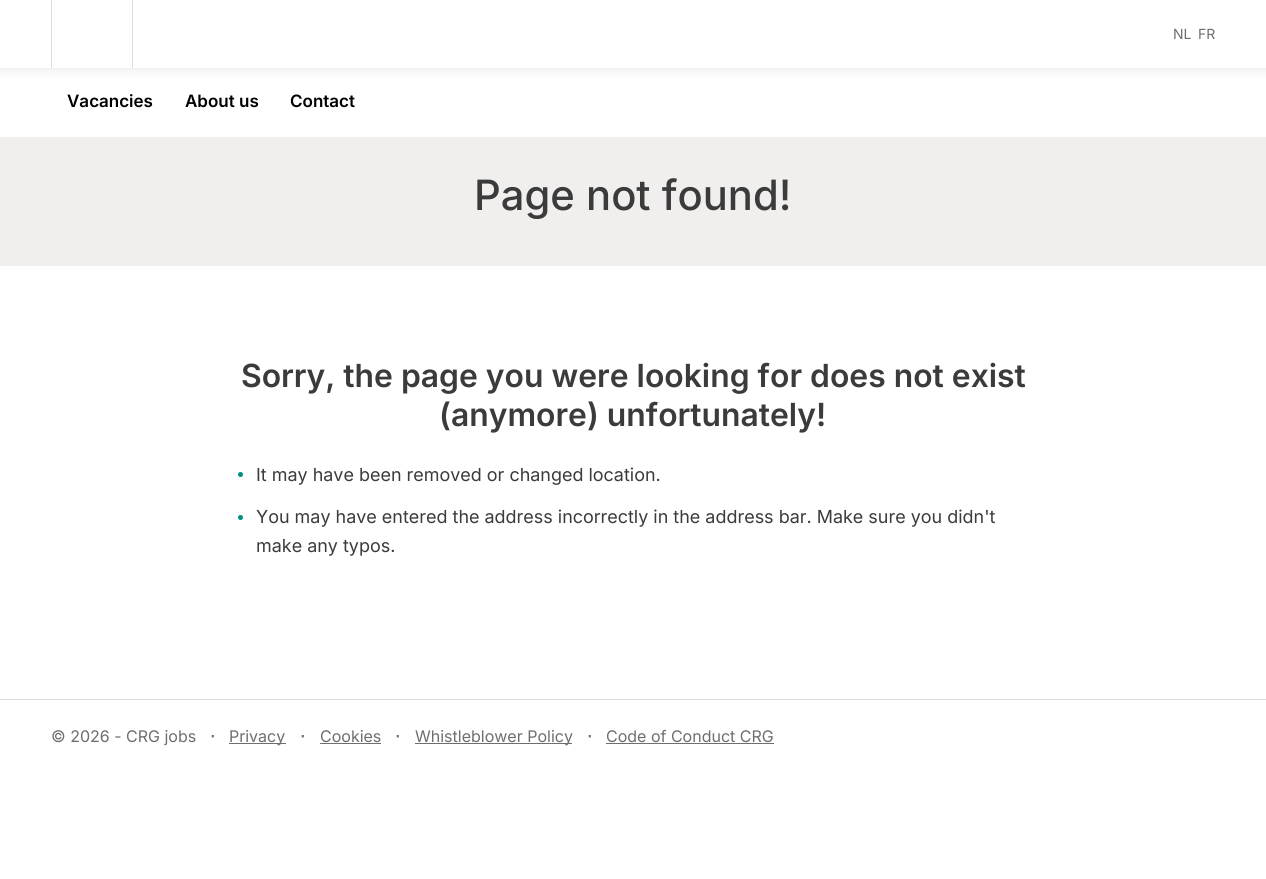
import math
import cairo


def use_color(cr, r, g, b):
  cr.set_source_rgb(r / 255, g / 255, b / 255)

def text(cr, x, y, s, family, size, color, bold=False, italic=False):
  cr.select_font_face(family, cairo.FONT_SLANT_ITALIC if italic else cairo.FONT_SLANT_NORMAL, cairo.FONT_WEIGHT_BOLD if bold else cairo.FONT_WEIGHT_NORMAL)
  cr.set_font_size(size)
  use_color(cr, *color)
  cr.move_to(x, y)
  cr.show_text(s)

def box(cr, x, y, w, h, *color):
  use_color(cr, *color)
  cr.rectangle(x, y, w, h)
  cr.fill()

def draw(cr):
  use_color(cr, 255, 255, 255)
  cr.paint()
  box(cr, 0, 68, 1266, 1, 241, 239, 238)
  box(cr, 132, 0, 1, 68, 224, 220, 215)
  box(cr, 51, 0, 1, 68, 224, 220, 215)
  gradient = cairo.LinearGradient(633, 69, 633, 137)
  gradient.add_color_stop_rgba(0, 0.961, 0.961, 0.961, 1)
  gradient.add_color_stop_rgba(0.18, 1, 1, 1, 1)
  cr.set_source(gradient)
  cr.rectangle(0, 69, 1266, 9)
  cr.fill()
  box(cr, 0, 137, 1266, 129, 241, 239, 238)
  use_color(cr, 0, 143, 129)
  cr.arc(240.5, 474.5, 2.5, 0, 2 * math.pi)
  cr.fill()
  cr.arc(240.5, 517.5, 2.5, 0, 2 * math.pi)
  cr.fill()
  box(cr, 0, 699, 1266, 1, 224, 220, 215)
  box(cr, 229, 743, 57, 1, 110, 110, 110)
  box(cr, 320, 743, 61, 1, 110, 110, 110)
  box(cr, 415, 743, 157, 1, 110, 110, 110)
  box(cr, 606, 743, 168, 1, 110, 110, 110)
  text(cr, 1173, 39, "NL", "Inter", 14, (110, 110, 110))
  text(cr, 1198, 39, "FR", "Inter", 14, (110, 110, 110))
  text(cr, 67, 107, "Vacancies", "Inter SemiBold", 17, (0, 0, 0))
  text(cr, 185, 107, "About us", "Inter SemiBold", 17, (0, 0, 0))
  text(cr, 290, 107, "Contact", "Inter SemiBold", 17, (0, 0, 0))
  text(cr, 474, 210, "Page not found!", "Inter Medium", 41.75, (59, 59, 59))
  text(cr, 241, 387, "Sorry, the page you were looking for does not exist", "Inter SemiBold", 31.85, (59, 59, 59))
  text(cr, 439, 426, "(anymore) unfortunately!", "Inter SemiBold", 31.85, (59, 59, 59))
  text(cr, 256, 481, "It may have been removed or changed location.", "Inter", 17.95, (59, 59, 59))
  text(cr, 256, 523, "You may have entered the address incorrectly in the address bar. Make sure you didn't", "Inter", 17.95, (59, 59, 59))
  text(cr, 256, 552, "make any typos.", "Inter", 17.95, (59, 59, 59))
  text(cr, 51, 742, "© 2026 - CRG jobs", "Inter", 16, (110, 110, 110))
  text(cr, 210, 742, "⋅", "DejaVu Sans", 16, (110, 110, 110), bold=True)
  text(cr, 229, 742, "Privacy", "Inter", 16, (110, 110, 110))
  text(cr, 300, 742, "⋅", "DejaVu Sans", 16, (110, 110, 110), bold=True)
  text(cr, 320, 742, "Cookies", "Inter", 16, (110, 110, 110))
  text(cr, 395, 742, "⋅", "DejaVu Sans", 16, (110, 110, 110), bold=True)
  text(cr, 415, 742, "Whistleblower Policy", "Inter", 16, (110, 110, 110))
  text(cr, 587, 742, "⋅", "DejaVu Sans", 16, (110, 110, 110), bold=True)
  text(cr, 606, 742, "Code of Conduct CRG", "Inter", 16, (110, 110, 110))


surface = cairo.ImageSurface(cairo.FORMAT_RGB24, 1266, 879)
cr = cairo.Context(surface)
options = cairo.FontOptions()
options.set_hint_metrics(cairo.HINT_METRICS_OFF)
options.set_hint_style(cairo.HINT_STYLE_NONE)
cr.set_font_options(options)
cr.set_miter_limit(4)
draw(cr)
surface.write_to_png("out.png")
